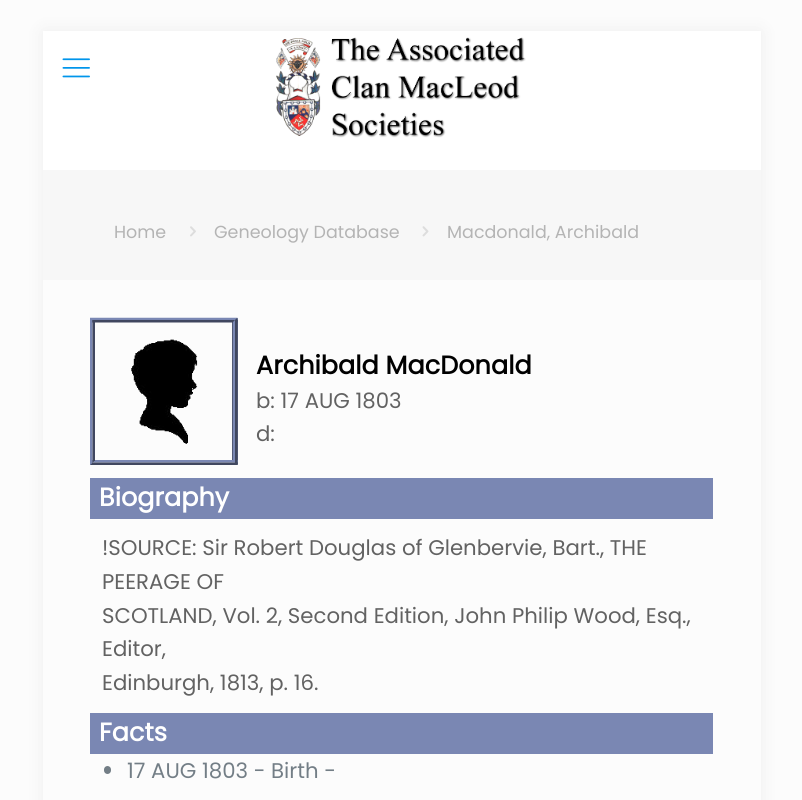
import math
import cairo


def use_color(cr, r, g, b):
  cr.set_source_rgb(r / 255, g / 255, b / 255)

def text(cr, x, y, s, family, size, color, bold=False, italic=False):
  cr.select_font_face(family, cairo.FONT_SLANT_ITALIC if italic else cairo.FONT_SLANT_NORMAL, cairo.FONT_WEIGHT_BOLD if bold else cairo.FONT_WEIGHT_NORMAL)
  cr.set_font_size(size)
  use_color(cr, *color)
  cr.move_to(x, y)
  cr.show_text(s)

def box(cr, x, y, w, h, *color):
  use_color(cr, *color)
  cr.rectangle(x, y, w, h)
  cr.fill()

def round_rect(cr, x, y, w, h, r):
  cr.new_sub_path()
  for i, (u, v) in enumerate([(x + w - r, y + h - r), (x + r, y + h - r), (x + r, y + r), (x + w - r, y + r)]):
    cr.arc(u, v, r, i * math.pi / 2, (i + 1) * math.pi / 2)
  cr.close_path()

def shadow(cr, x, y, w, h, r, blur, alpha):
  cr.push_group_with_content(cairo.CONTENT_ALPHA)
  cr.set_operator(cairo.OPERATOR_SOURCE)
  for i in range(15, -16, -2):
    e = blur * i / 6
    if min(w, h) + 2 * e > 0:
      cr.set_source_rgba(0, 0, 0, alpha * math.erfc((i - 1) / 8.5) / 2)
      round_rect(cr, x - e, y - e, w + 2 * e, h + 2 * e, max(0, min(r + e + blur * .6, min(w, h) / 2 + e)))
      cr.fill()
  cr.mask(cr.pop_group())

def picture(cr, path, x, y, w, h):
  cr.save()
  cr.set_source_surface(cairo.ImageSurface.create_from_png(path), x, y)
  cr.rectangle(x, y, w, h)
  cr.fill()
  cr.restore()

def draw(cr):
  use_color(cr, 252, 252, 252)
  cr.paint()
  use_color(cr, 0, 0, 0)
  shadow(cr, 43, 31, 718, 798, 0, 9.5, 0.06)
  box(cr, 43, 280, 718, 520, 252, 252, 252)
  box(cr, 43, 31, 718, 139, 255, 255, 255)
  picture(cr, "img_01.png", 62, 58, 28, 20)
  picture(cr, "img_02.png", 276, 37, 250, 101)
  box(cr, 43, 170, 718, 110, 247, 247, 247)
  picture(cr, "img_03.png", 190, 226, 6, 11)
  picture(cr, "img_04.png", 422, 226, 7, 11)
  use_color(cr, 81, 90, 119)
  cr.new_path()
  cr.move_to(238, 318)
  cr.line_to(238, 465)
  cr.line_to(232, 460)
  cr.line_to(232, 322)
  cr.close_path()
  cr.fill()
  picture(cr, "img_05.png", 90, 317, 148, 148)
  box(cr, 90, 478, 623, 41, 122, 135, 179)
  box(cr, 90, 713, 623, 41, 122, 135, 179)
  use_color(cr, 115, 126, 134)
  round_rect(cr, 104, 766, 7, 8, 3.5)
  cr.fill()
  text(cr, 114, 238, "Home", "Poppins", 17.5, (180, 180, 180))
  text(cr, 214, 238, "Geneology Database", "Poppins", 17.5, (180, 180, 180))
  text(cr, 447, 238, "Macdonald, Archibald", "Poppins", 17.5, (180, 180, 180))
  text(cr, 256, 374, "Archibald MacDonald", "Poppins", 25.5, (0, 0, 0), bold=True)
  text(cr, 256, 408, "b: 17 AUG 1803", "Poppins", 21.25, (98, 98, 98))
  text(cr, 256, 441, "d:", "Poppins", 21.25, (98, 98, 98))
  text(cr, 99, 506, "Biography", "Poppins", 25.5, (255, 255, 255), bold=True)
  text(cr, 102, 555, "!SOURCE: Sir Robert Douglas of Glenbervie, Bart., THE", "Poppins", 21.25, (98, 98, 98))
  text(cr, 102, 589, "PEERAGE OF", "Poppins", 21.25, (98, 98, 98))
  text(cr, 102, 623, "SCOTLAND, Vol. 2, Second Edition, John Philip Wood, Esq.,", "Poppins", 21.25, (98, 98, 98))
  text(cr, 102, 656, "Editor,", "Poppins", 21.25, (98, 98, 98))
  text(cr, 102, 690, "Edinburgh, 1813, p. 16.", "Poppins", 21.25, (98, 98, 98))
  text(cr, 99, 741, "Facts", "Poppins", 25.5, (255, 255, 255), bold=True)
  text(cr, 127, 778, "17 AUG 1803 - Birth -", "Poppins", 21.25, (115, 126, 134))


surface = cairo.ImageSurface(cairo.FORMAT_RGB24, 802, 800)
cr = cairo.Context(surface)
options = cairo.FontOptions()
options.set_hint_metrics(cairo.HINT_METRICS_OFF)
options.set_hint_style(cairo.HINT_STYLE_NONE)
cr.set_font_options(options)
cr.set_miter_limit(4)
draw(cr)
surface.write_to_png("out.png")
